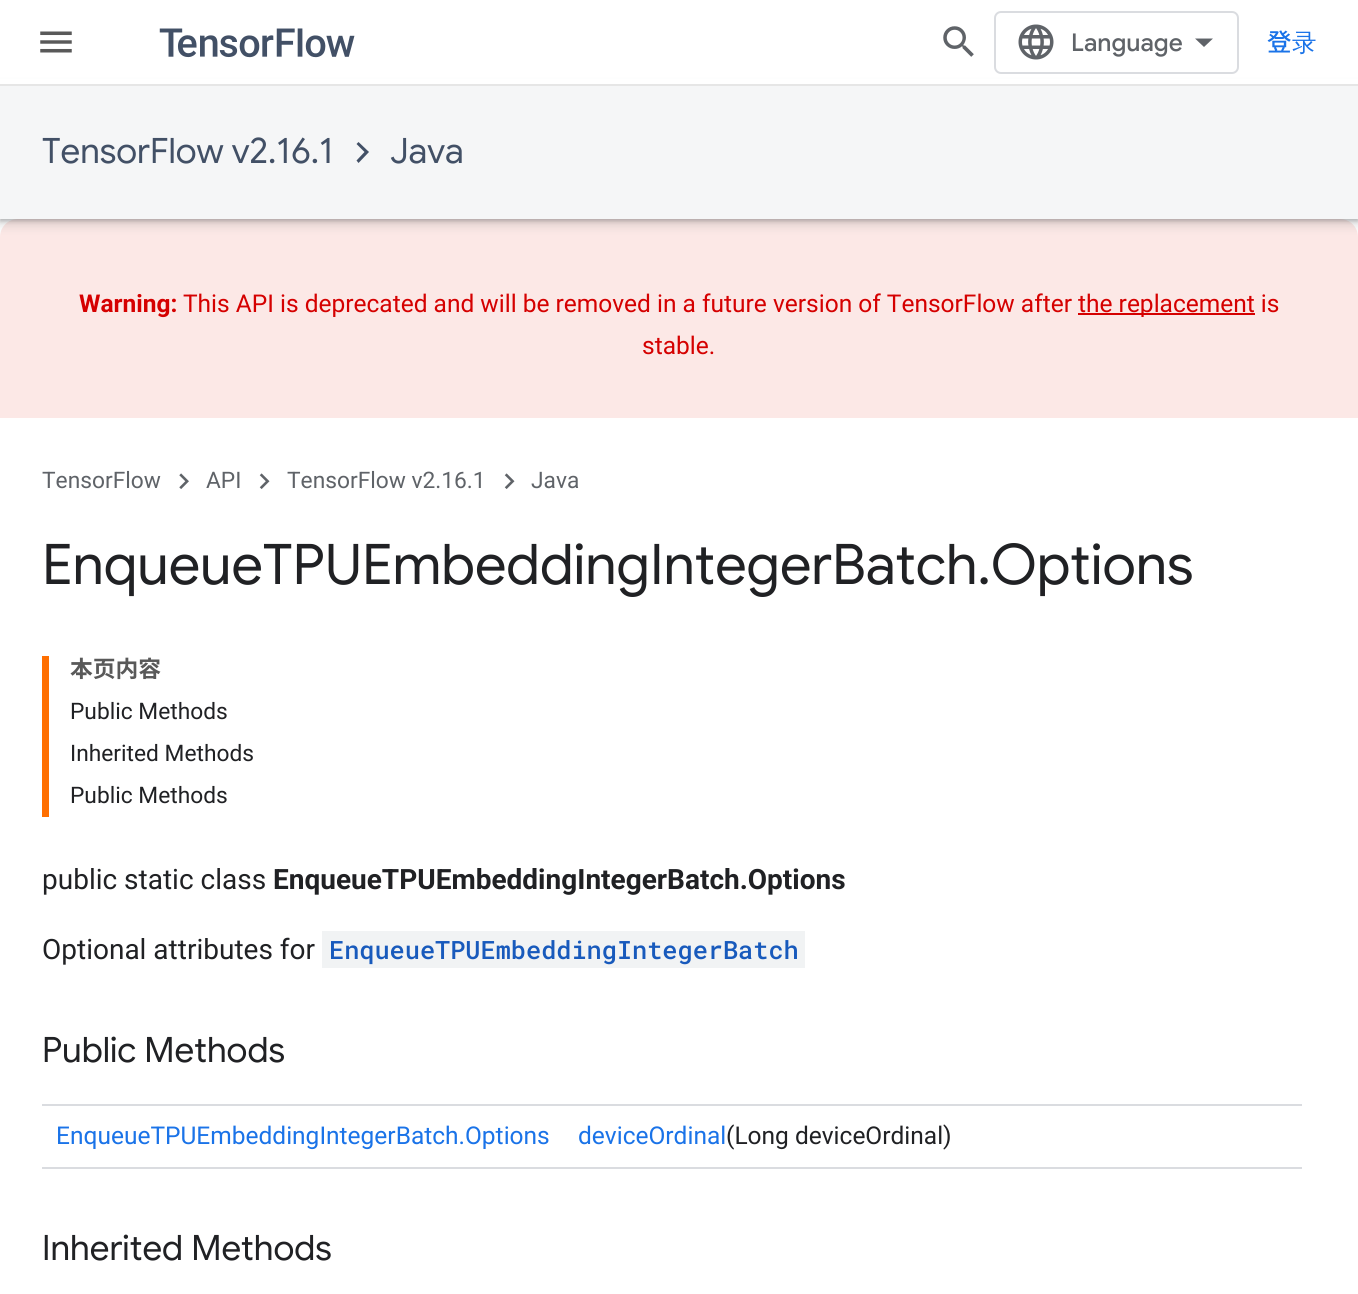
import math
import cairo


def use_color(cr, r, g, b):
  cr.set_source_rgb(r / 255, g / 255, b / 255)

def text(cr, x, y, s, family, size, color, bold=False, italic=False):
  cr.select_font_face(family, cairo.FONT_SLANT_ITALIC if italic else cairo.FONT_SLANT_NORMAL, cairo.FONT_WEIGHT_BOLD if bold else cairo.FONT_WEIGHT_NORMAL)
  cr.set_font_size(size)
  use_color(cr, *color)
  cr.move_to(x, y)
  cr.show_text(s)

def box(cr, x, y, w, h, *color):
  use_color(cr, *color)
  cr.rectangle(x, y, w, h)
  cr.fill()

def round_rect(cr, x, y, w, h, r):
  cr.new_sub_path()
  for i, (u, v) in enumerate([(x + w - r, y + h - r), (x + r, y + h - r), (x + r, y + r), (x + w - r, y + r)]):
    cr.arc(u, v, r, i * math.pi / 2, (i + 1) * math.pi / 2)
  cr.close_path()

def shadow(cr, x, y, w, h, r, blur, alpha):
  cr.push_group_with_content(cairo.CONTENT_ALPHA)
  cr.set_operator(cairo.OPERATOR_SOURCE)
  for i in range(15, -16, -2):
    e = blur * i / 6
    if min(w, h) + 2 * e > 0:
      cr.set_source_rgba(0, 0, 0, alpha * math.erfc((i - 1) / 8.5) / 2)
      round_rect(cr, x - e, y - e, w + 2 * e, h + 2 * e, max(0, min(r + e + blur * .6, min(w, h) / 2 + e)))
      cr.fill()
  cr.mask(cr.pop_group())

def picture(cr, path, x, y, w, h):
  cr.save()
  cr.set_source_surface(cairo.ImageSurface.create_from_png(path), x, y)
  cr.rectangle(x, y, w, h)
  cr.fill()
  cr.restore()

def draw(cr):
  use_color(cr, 255, 255, 255)
  cr.paint()
  use_color(cr, 252, 232, 230)
  cr.new_path()
  cr.move_to(18, 219)
  cr.line_to(1340, 219)
  cr.curve_to(1350, 219, 1358, 227, 1358, 237)
  cr.line_to(1358, 418)
  cr.line_to(0, 418)
  cr.line_to(0, 237)
  cr.curve_to(0, 227, 8, 219, 18, 219)
  cr.close_path()
  cr.fill()
  use_color(cr, 60, 64, 67)
  shadow(cr, -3, 86, 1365, 140, 0, 5, 0.15)
  shadow(cr, 0, 88, 1358, 133, 0, 2, 0.3)
  box(cr, 0, 79, 1358, 5, 255, 255, 255)
  box(cr, 0, 84, 1358, 2, 230, 230, 230)
  picture(cr, "img_01.png", 40, 31, 32, 22)
  picture(cr, "img_02.png", 159, 28, 196, 30)
  picture(cr, "img_03.png", 943, 26, 31, 31)
  round_rect(cr, 995, 12, 243, 61, 6)
  use_color(cr, 218, 220, 224)
  cr.stroke()
  picture(cr, "img_04.png", 1018, 24, 36, 36)
  use_color(cr, 95, 99, 104)
  cr.new_path()
  cr.move_to(1204, 47)
  cr.line_to(1195, 38.5)
  cr.line_to(1213, 38.5)
  cr.close_path()
  cr.fill()
  box(cr, 0, 86, 1358, 133, 245, 246, 247)
  use_color(cr, 66, 80, 102)
  cr.new_path()
  cr.move_to(358.5, 142)
  cr.line_to(369, 152)
  cr.line_to(358.5, 163)
  cr.line_to(356.5, 160.5)
  cr.line_to(364.5, 152)
  cr.line_to(356.5, 144)
  cr.close_path()
  cr.fill()
  box(cr, 1078, 313, 177, 2, 213, 0, 0)
  picture(cr, "img_05.png", 179, 473, 10, 16)
  picture(cr, "img_06.png", 259, 473, 11, 16)
  picture(cr, "img_06.png", 504, 473, 11, 16)
  box(cr, 42, 656, 7, 161, 255, 111, 0)
  box(cr, 322, 931, 483, 37, 241, 243, 244)
  box(cr, 42, 1104, 1260, 2, 218, 220, 224)
  box(cr, 42, 1167, 1260, 2, 218, 220, 224)
  text(cr, 1071, 51, "Language", "Google Sans Medium", 24.5, (95, 99, 104))
  text(cr, 1267, 51, "登", "Noto Sans JP Medium", 24.5, (26, 115, 232))
  text(cr, 1292, 51, "录", "WenQuanYi Zen Hei Medium", 24.5, (26, 115, 232))
  text(cr, 42, 163, "TensorFlow v2.16.1", "Google Sans", 35, (66, 80, 102))
  text(cr, 390, 163, "Java", "Google Sans", 35, (66, 80, 102))
  text(cr, 79, 312, "Warning:", "Roboto", 24.5, (213, 0, 0), bold=True)
  text(cr, 183, 312, "This API is deprecated and will be removed in a future version of TensorFlow after", "Roboto", 24.5, (213, 0, 0))
  text(cr, 1078, 312, "the replacement is", "Roboto", 24.5, (213, 0, 0))
  text(cr, 642, 354, "stable.", "Roboto", 24.5, (213, 0, 0))
  text(cr, 42, 488, "TensorFlow", "Roboto", 22.75, (95, 99, 104))
  text(cr, 206, 488, "API", "Roboto", 22.75, (95, 99, 104))
  text(cr, 287, 488, "TensorFlow v2.16.1", "Roboto", 22.75, (95, 99, 104))
  text(cr, 531, 488, "Java", "Roboto", 22.75, (95, 99, 104))
  text(cr, 42, 584, "EnqueueTPUEmbeddingIntegerBatch.Options", "Google Sans", 56, (32, 33, 36))
  text(cr, 70, 677, "本页内容", "Noto Sans JP", 22.75, (89, 89, 89), bold=True)
  text(cr, 70, 719, "Public Methods", "Roboto", 22.75, (32, 33, 36))
  text(cr, 70, 761, "Inherited Methods", "Roboto", 22.75, (32, 33, 36))
  text(cr, 70, 803, "Public Methods", "Roboto", 22.75, (32, 33, 36))
  text(cr, 42, 889, "public static class", "Roboto", 28, (32, 33, 36))
  text(cr, 273, 889, "EnqueueTPUEmbeddingIntegerBatch.Options", "Roboto", 28, (32, 33, 36), bold=True)
  text(cr, 42, 959, "Optional attributes for", "Roboto", 28, (32, 33, 36))
  text(cr, 329, 959, "EnqueueTPUEmbeddingIntegerBatch", "Roboto Mono Medium", 25.25, (24, 90, 188))
  text(cr, 42, 1062, "Public Methods", "Google Sans", 35, (32, 33, 36))
  text(cr, 56, 1144, "EnqueueTPUEmbeddingIntegerBatch.Options", "Roboto", 24.5, (26, 115, 232))
  text(cr, 578, 1144, "deviceOrdinal", "Roboto", 24.5, (26, 115, 232))
  text(cr, 726, 1144, "(Long deviceOrdinal)", "Roboto", 24.5, (32, 33, 36))
  text(cr, 42, 1260, "Inherited Methods", "Google Sans", 35, (32, 33, 36))


surface = cairo.ImageSurface(cairo.FORMAT_RGB24, 1358, 1294)
cr = cairo.Context(surface)
options = cairo.FontOptions()
options.set_hint_metrics(cairo.HINT_METRICS_OFF)
options.set_hint_style(cairo.HINT_STYLE_NONE)
cr.set_font_options(options)
cr.set_miter_limit(4)
draw(cr)
surface.write_to_png("out.png")
